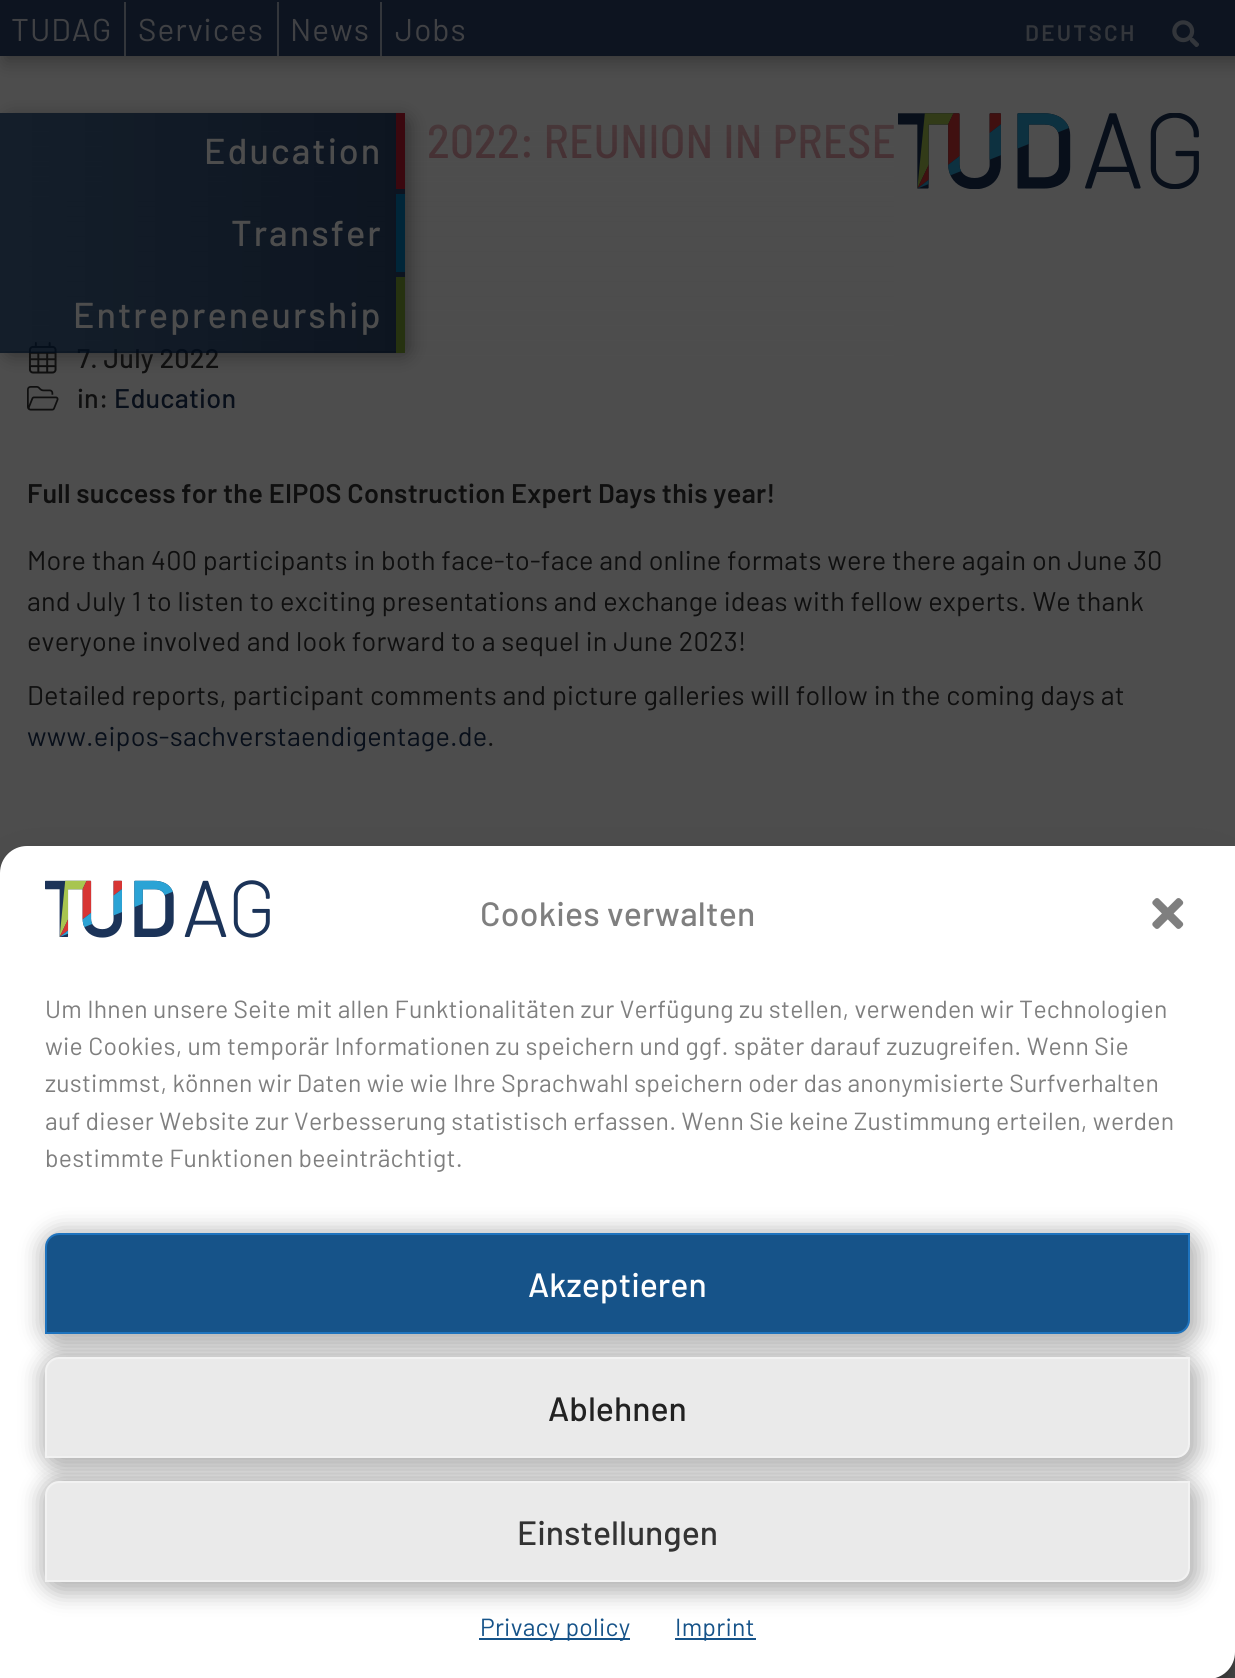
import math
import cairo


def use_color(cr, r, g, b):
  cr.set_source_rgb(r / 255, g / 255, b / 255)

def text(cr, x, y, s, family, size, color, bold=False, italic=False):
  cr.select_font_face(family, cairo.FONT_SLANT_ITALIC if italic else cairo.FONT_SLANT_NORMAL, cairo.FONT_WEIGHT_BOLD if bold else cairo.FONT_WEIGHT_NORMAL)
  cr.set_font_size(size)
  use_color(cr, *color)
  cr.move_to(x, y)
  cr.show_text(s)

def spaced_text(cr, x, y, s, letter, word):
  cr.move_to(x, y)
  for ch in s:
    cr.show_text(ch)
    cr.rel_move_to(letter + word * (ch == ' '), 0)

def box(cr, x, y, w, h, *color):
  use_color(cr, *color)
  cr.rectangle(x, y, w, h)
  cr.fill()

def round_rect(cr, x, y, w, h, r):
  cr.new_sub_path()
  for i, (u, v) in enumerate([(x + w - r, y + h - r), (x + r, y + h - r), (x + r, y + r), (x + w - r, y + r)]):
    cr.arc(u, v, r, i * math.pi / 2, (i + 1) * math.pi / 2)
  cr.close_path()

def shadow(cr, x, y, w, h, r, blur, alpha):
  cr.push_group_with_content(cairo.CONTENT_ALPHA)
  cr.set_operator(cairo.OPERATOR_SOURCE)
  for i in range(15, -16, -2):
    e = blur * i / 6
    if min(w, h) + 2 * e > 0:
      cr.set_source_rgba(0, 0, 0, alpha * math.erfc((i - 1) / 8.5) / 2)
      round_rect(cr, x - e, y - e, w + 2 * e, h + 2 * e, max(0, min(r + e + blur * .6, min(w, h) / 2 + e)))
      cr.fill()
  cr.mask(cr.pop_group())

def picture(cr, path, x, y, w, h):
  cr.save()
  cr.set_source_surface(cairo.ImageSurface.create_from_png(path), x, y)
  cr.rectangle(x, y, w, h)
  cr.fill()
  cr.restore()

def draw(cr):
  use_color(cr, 77, 77, 77)
  cr.paint()
  use_color(cr, 0, 0, 0)
  shadow(cr, 5, 5, 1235, 56, 0, 9, 0.3)
  box(cr, 0, 0, 1235, 56, 13, 20, 32)
  box(cr, 124, 2, 2, 54, 51, 54, 59)
  box(cr, 277, 2, 2, 54, 51, 54, 59)
  box(cr, 380, 2, 2, 54, 51, 54, 59)
  picture(cr, "img_01.png", 1172, 20, 27, 27)
  picture(cr, "img_02.png", 898, 113, 301, 76)
  picture(cr, "img_03.png", 28, 342, 29, 32)
  picture(cr, "img_04.png", 27, 386, 32, 25)
  use_color(cr, 0, 0, 0)
  shadow(cr, 0, 860, 1235, 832, 27, 7, 0.23)
  shadow(cr, 0, 869, 1235, 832, 27, 22.5, 0.19)
  use_color(cr, 255, 255, 255)
  cr.new_path()
  cr.move_to(27, 846)
  cr.line_to(1235, 846)
  cr.line_to(1235, 1652)
  cr.curve_to(1235, 1667, 1223, 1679, 1208, 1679)
  cr.line_to(0, 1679)
  cr.line_to(0, 873)
  cr.curve_to(0, 858, 12, 846, 27, 846)
  cr.close_path()
  cr.fill()
  picture(cr, "img_05.png", 45, 880, 225, 58)
  picture(cr, "img_06.png", 1152, 898, 32, 31)
  use_color(cr, 0, 0, 0)
  shadow(cr, 41, 1231, 1158, 115, 20, 11, 0.3)
  use_color(cr, 22, 83, 137)
  cr.new_path()
  cr.move_to(59, 1234)
  cr.line_to(1189, 1234)
  cr.line_to(1189, 1320)
  cr.curve_to(1189, 1327, 1183, 1333, 1176, 1333)
  cr.line_to(46, 1333)
  cr.line_to(46, 1247)
  cr.curve_to(46, 1240, 52, 1234, 59, 1234)
  cr.close_path()
  cr.fill_preserve()
  use_color(cr, 30, 115, 190)
  cr.stroke()
  use_color(cr, 0, 0, 0)
  shadow(cr, 41, 1355, 1158, 114, 20, 11, 0.3)
  use_color(cr, 234, 234, 234)
  cr.new_path()
  cr.move_to(59, 1358)
  cr.line_to(1189, 1358)
  cr.line_to(1189, 1444)
  cr.curve_to(1189, 1451, 1183, 1457, 1176, 1457)
  cr.line_to(46, 1457)
  cr.line_to(46, 1371)
  cr.curve_to(46, 1364, 52, 1358, 59, 1358)
  cr.close_path()
  cr.fill_preserve()
  use_color(cr, 242, 242, 242)
  cr.stroke()
  use_color(cr, 0, 0, 0)
  shadow(cr, 41, 1478, 1158, 115, 20, 11, 0.3)
  use_color(cr, 234, 234, 234)
  cr.new_path()
  cr.move_to(59, 1482)
  cr.line_to(1189, 1482)
  cr.line_to(1189, 1568)
  cr.curve_to(1189, 1575, 1183, 1581, 1176, 1581)
  cr.line_to(46, 1581)
  cr.line_to(46, 1495)
  cr.curve_to(46, 1488, 52, 1482, 59, 1482)
  cr.close_path()
  cr.fill_preserve()
  use_color(cr, 242, 242, 242)
  cr.stroke()
  box(cr, 479, 1638, 151, 2, 22, 83, 137)
  box(cr, 675, 1638, 81, 2, 22, 83, 137)
  cr.select_font_face("Barlow")
  cr.set_font_size(31.5)
  use_color(cr, 64, 65, 68)
  spaced_text(cr, 11, 41, "TUDAG", 1, 0)
  spaced_text(cr, 138, 41, "Services", 1, 0)
  spaced_text(cr, 290, 41, "News", 1, 0)
  spaced_text(cr, 395, 41, "Jobs", 1, 0)
  cr.select_font_face("Barlow SemiBold")
  cr.set_font_size(22.5)
  use_color(cr, 51, 54, 59)
  spaced_text(cr, 1025, 41, "DEUTSCH", 2.25, 0)
  cr.select_font_face("Barlow Semi Condensed Medium")
  cr.set_font_size(47.25)
  use_color(cr, 59, 8, 15)
  spaced_text(cr, 427, 158, "2022: REUNION IN PRESE", 0.23, 0)
  cr.select_font_face("Barlow Medium")
  cr.set_font_size(27)
  use_color(cr, 15, 15, 15)
  spaced_text(cr, 77, 368, "7. July 2022", 0.23, 0)
  gradient = cairo.LinearGradient(618, 0, 618, 383)
  gradient.add_color_stop_rgba(0, 0.302, 0.302, 0.302, 1)
  gradient.add_color_stop_rgba(1, 0.302, 0.302, 0.302, 0)
  cr.set_source(gradient)
  cr.rectangle(29, 124, 865, 242)
  cr.fill()
  cr.save()
  cr.set_fill_rule(cairo.FILL_RULE_EVEN_ODD)
  cr.new_path()
  cr.move_to(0, 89)
  cr.line_to(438, 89)
  cr.line_to(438, 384)
  cr.line_to(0, 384)
  cr.close_path()
  cr.move_to(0, 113)
  cr.line_to(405, 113)
  cr.line_to(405, 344)
  cr.curve_to(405, 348, 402, 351, 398, 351)
  cr.line_to(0, 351)
  cr.close_path()
  cr.clip()
  use_color(cr, 0, 0, 0)
  shadow(cr, 5, 117, 405, 239, 7, 9, 0.33)
  cr.restore()
  gradient = cairo.LinearGradient(405, 233, 0, 233)
  gradient.add_color_stop_rgba(0, 0, 0.035, 0.09, 0.83)
  gradient.add_color_stop_rgba(1, 0, 0.055, 0.118, 0.74)
  cr.set_source(gradient)
  cr.rectangle(0, 113, 405, 240)
  cr.fill()
  cr.set_font_size(36)
  use_color(cr, 77, 77, 77)
  spaced_text(cr, 73, 328, "Entrepreneurship", 2, 0)
  box(cr, 396, 277, 9, 76, 38, 50, 16)
  use_color(cr, 77, 77, 77)
  spaced_text(cr, 231, 246, "Transfer", 2, 0)
  box(cr, 396, 194, 9, 78, 0, 38, 57)
  use_color(cr, 77, 77, 77)
  spaced_text(cr, 204, 164, "Education", 2, 0)
  box(cr, 396, 113, 9, 76, 59, 8, 15)
  cr.set_font_size(27)
  use_color(cr, 15, 15, 15)
  spaced_text(cr, 77, 408, "in:", 0.23, 0)
  use_color(cr, 8, 15, 26)
  spaced_text(cr, 114, 408, "Education", 0.23, 0)
  cr.select_font_face("Barlow SemiBold")
  use_color(cr, 15, 15, 15)
  spaced_text(cr, 27, 503, "Full success for the EIPOS Construction Expert Days this year!", 0.23, 0)
  cr.select_font_face("Barlow")
  spaced_text(cr, 27, 570, "More than 400 participants in both face-to-face and online formats were there again on June 30", 0.23, 0)
  spaced_text(cr, 27, 611, "and July 1 to listen to exciting presentations and exchange ideas with fellow experts. We thank", 0.23, 0)
  spaced_text(cr, 27, 651, "everyone involved and look forward to a sequel in June 2023!", 0.23, 0)
  spaced_text(cr, 27, 705, "Detailed reports, participant comments and picture galleries will follow in the coming days at", 0.23, 0)
  use_color(cr, 8, 15, 26)
  spaced_text(cr, 27, 746, "www.eipos-sachverstaendigentage.de", 0.23, 0)
  use_color(cr, 15, 15, 15)
  spaced_text(cr, 487, 746, ".", 0.23, 0)
  cr.select_font_face("Barlow Medium")
  cr.set_font_size(33.75)
  use_color(cr, 127, 127, 127)
  spaced_text(cr, 480, 926, "Cookies verwalten", 0.23, 0)
  cr.select_font_face("Barlow")
  cr.set_font_size(24.75)
  spaced_text(cr, 45, 1018, "Um Ihnen unsere Seite mit allen Funktionalitäten zur Verfügung zu stellen, verwenden wir Technologien", 0.23, 0)
  spaced_text(cr, 45, 1055, "wie Cookies, um temporär Informationen zu speichern und ggf. später darauf zuzugreifen. Wenn Sie", 0.23, 0)
  spaced_text(cr, 45, 1092, "zustimmst, können wir Daten wie wie Ihre Sprachwahl speichern oder das anonymisierte Surfverhalten", 0.23, 0)
  spaced_text(cr, 45, 1130, "auf dieser Website zur Verbesserung statistisch erfassen. Wenn Sie keine Zustimmung erteilen, werden", 0.23, 0)
  spaced_text(cr, 45, 1167, "bestimmte Funktionen beeinträchtigt.", 0.23, 0)
  text(cr, 528, 1297, "Akzeptieren", "Barlow Medium", 33.75, (255, 255, 255))
  text(cr, 548, 1421, "Ablehnen", "Barlow Medium", 33.75, (34, 34, 34))
  text(cr, 517, 1545, "Einstellungen", "Barlow Medium", 33.75, (51, 51, 51))
  cr.select_font_face("Barlow")
  cr.set_font_size(24.75)
  use_color(cr, 22, 83, 137)
  spaced_text(cr, 480, 1636, "Privacy policy", 0.23, 0)
  spaced_text(cr, 675, 1636, "Imprint", 0.23, 0)


surface = cairo.ImageSurface(cairo.FORMAT_RGB24, 1235, 1678)
cr = cairo.Context(surface)
options = cairo.FontOptions()
options.set_hint_metrics(cairo.HINT_METRICS_OFF)
options.set_hint_style(cairo.HINT_STYLE_NONE)
cr.set_font_options(options)
cr.set_miter_limit(4)
draw(cr)
surface.write_to_png("out.png")
